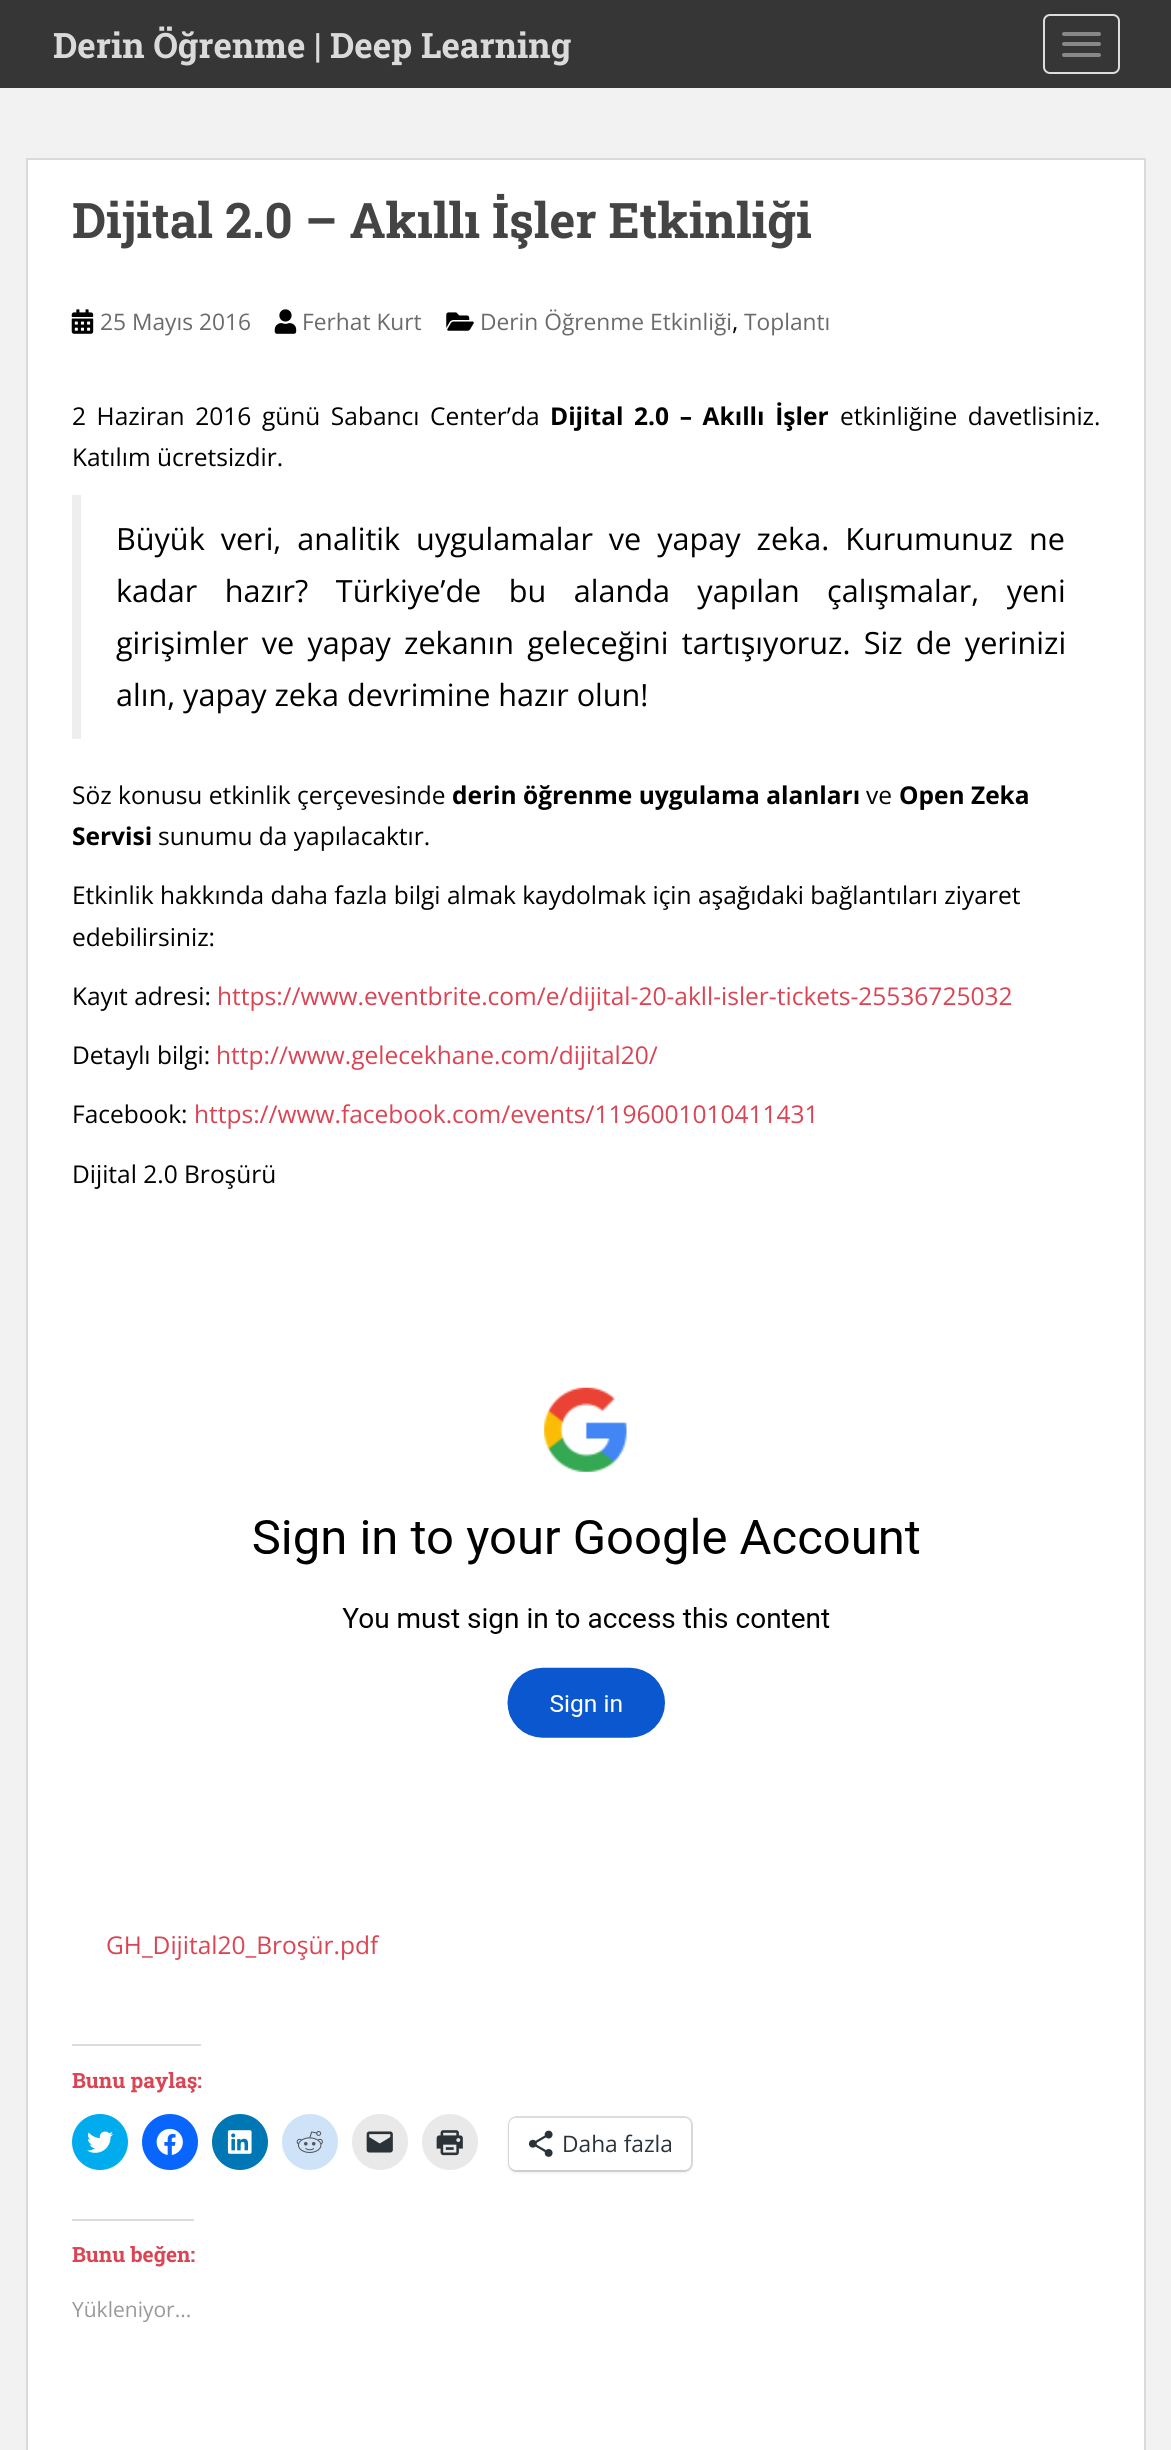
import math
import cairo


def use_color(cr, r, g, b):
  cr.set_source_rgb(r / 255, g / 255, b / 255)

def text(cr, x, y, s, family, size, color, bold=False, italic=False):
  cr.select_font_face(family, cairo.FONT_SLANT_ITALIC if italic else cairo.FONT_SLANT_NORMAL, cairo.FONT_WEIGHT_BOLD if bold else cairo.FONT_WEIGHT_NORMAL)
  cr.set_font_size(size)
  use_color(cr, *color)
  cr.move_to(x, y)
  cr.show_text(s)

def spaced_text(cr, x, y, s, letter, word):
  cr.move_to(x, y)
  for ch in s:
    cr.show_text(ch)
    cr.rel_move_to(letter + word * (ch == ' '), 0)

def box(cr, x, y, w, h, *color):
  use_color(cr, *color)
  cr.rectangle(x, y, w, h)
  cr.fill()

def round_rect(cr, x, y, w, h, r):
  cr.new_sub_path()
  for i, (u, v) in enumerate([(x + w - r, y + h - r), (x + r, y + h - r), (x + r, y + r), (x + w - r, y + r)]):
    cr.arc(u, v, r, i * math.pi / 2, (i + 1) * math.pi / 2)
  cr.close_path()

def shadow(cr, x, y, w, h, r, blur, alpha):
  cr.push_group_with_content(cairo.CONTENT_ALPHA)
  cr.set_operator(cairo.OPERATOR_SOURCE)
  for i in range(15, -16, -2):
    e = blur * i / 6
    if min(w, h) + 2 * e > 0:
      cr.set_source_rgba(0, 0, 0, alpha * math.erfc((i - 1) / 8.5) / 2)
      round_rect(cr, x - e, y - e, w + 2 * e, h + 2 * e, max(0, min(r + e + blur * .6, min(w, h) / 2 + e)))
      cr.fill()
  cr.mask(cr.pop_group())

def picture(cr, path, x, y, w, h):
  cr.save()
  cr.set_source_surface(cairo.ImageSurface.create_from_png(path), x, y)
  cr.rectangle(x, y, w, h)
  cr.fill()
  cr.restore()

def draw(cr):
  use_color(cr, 242, 242, 242)
  cr.paint()
  box(cr, 0, 0, 1171, 88, 54, 54, 54)
  round_rect(cr, 1044, 15, 75, 58, 6)
  use_color(cr, 221, 221, 221)
  cr.stroke()
  use_color(cr, 136, 136, 136)
  round_rect(cr, 1062, 32, 39, 4, 2)
  cr.fill()
  round_rect(cr, 1062, 42, 39, 4, 2)
  cr.fill()
  round_rect(cr, 1062, 53, 39, 4, 2)
  cr.fill()
  use_color(cr, 255, 255, 255)
  cr.rectangle(27, 159, 1118, 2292)
  cr.fill_preserve()
  use_color(cr, 218, 218, 218)
  cr.stroke()
  picture(cr, "img_01.png", 71, 309, 23, 25)
  picture(cr, "img_02.png", 274, 309, 23, 25)
  picture(cr, "img_03.png", 446, 312, 28, 19)
  box(cr, 72, 495, 9, 244, 238, 238, 238)
  picture(cr, "img_04.png", 253, 1387, 667, 351)
  box(cr, 72, 2044, 129, 2, 220, 220, 222)
  use_color(cr, 0, 172, 238)
  cr.arc(100, 2142, 28, 0, 2 * math.pi)
  cr.fill()
  picture(cr, "img_05.png", 87, 2131, 26, 22)
  use_color(cr, 8, 102, 255)
  cr.arc(170, 2142, 28, 0, 2 * math.pi)
  cr.fill()
  picture(cr, "img_06.png", 156, 2128, 27, 27)
  use_color(cr, 0, 119, 181)
  cr.arc(240, 2142, 28, 0, 2 * math.pi)
  cr.fill()
  picture(cr, "img_07.png", 227, 2130, 25, 24)
  use_color(cr, 206, 227, 248)
  cr.arc(310, 2142, 28, 0, 2 * math.pi)
  cr.fill()
  picture(cr, "img_08.png", 296, 2131, 27, 22)
  use_color(cr, 233, 233, 233)
  cr.arc(380, 2142, 28, 0, 2 * math.pi)
  cr.fill()
  picture(cr, "img_09.png", 366, 2131, 27, 22)
  cr.arc(450, 2142, 28, 0, 2 * math.pi)
  cr.fill()
  picture(cr, "img_10.png", 436, 2130, 27, 26)
  round_rect(cr, 509, 2117, 183, 54, 8)
  use_color(cr, 224, 224, 224)
  cr.stroke()
  use_color(cr, 0, 0, 0)
  shadow(cr, 509, 2119, 182, 53, 7, 2, 0.12)
  use_color(cr, 255, 255, 255)
  round_rect(cr, 509, 2118, 182, 52, 7)
  cr.fill()
  picture(cr, "img_11.png", 528, 2130, 25, 27)
  box(cr, 72, 2219, 122, 2, 220, 220, 222)
  text(cr, 53, 58, "Derin Öğrenme | Deep Learning", "Roboto Slab", 35, (218, 218, 218), bold=True)
  text(cr, 72, 238, "Dijital 2.0 – Akıllı İşler Etkinliği", "Roboto Slab", 49, (68, 68, 68), bold=True)
  text(cr, 100, 330, "25 Mayıs 2016", "Open Sans", 22.75, (107, 107, 107))
  text(cr, 302, 330, "Ferhat Kurt", "Open Sans", 22.75, (107, 107, 107))
  text(cr, 480, 330, "Derin Öğrenme Etkinliği", "Open Sans", 22.75, (107, 107, 107))
  text(cr, 732, 330, ",", "Open Sans", 24.5, (0, 0, 0))
  text(cr, 744, 330, "Toplantı", "Open Sans", 22.75, (107, 107, 107))
  cr.set_font_size(24.5)
  use_color(cr, 0, 0, 0)
  spaced_text(cr, 72, 425, "2 Haziran 2016 günü Sabancı Center’da", 0, 4.25)
  cr.select_font_face("Open Sans", cairo.FONT_SLANT_NORMAL, cairo.FONT_WEIGHT_BOLD)
  spaced_text(cr, 550, 425, "Dijital 2.0 – Akıllı İşler", 0, 4.25)
  cr.select_font_face("Open Sans")
  spaced_text(cr, 840, 425, "etkinliğine davetlisiniz.", 0, 4.25)
  text(cr, 72, 466, "Katılım ücretsizdir.", "Open Sans", 24.5, (0, 0, 0))
  cr.set_font_size(30.6)
  spaced_text(cr, 116, 550, "Büyük veri, analitik uygulamalar ve yapay zeka. Kurumunuz ne", 0, 8)
  spaced_text(cr, 116, 602, "kadar hazır? Türkiye’de bu alanda yapılan çalışmalar, yeni", 0, 19.5)
  spaced_text(cr, 116, 654, "girişimler ve yapay zekanın geleceğini tartışıyoruz. Siz de yerinizi", 0, 5.25)
  text(cr, 116, 706, "alın, yapay zeka devrimine hazır olun!", "Open Sans", 30.6, (0, 0, 0))
  text(cr, 72, 804, "Söz konusu etkinlik çerçevesinde", "Open Sans", 24.5, (0, 0, 0))
  text(cr, 452, 804, "derin öğrenme uygulama alanları", "Open Sans", 24.5, (0, 0, 0), bold=True)
  text(cr, 866, 804, "ve", "Open Sans", 24.5, (0, 0, 0))
  text(cr, 899, 804, "Open Zeka", "Open Sans", 24.5, (0, 0, 0), bold=True)
  text(cr, 72, 845, "Servisi", "Open Sans", 24.5, (0, 0, 0), bold=True)
  text(cr, 158, 845, "sunumu da yapılacaktır.", "Open Sans", 24.5, (0, 0, 0))
  text(cr, 72, 904, "Etkinlik hakkında daha fazla bilgi almak kaydolmak için aşağıdaki bağlantıları ziyaret", "Open Sans", 24.5, (0, 0, 0))
  text(cr, 72, 946, "edebilirsiniz:", "Open Sans", 24.5, (0, 0, 0))
  text(cr, 72, 1005, "Kayıt adresi:", "Open Sans", 24.5, (0, 0, 0))
  text(cr, 217, 1005, "https://www.eventbrite.com/e/dijital-20-akll-isler-tickets-25536725032", "Open Sans", 24.5, (218, 68, 83))
  text(cr, 72, 1064, "Detaylı bilgi:", "Open Sans", 24.5, (0, 0, 0))
  text(cr, 216, 1064, "http://www.gelecekhane.com/dijital20/", "Open Sans", 24.5, (218, 68, 83))
  text(cr, 72, 1123, "Facebook:", "Open Sans", 24.5, (0, 0, 0))
  text(cr, 194, 1123, "https://www.facebook.com/events/1196001010411431", "Open Sans", 24.5, (218, 68, 83))
  text(cr, 72, 1183, "Dijital 2.0 Broşürü", "Open Sans", 24.5, (0, 0, 0))
  text(cr, 106, 1954, "GH_Dijital20_Broşür.pdf", "Open Sans", 24.5, (218, 68, 83))
  text(cr, 72, 2088, "Bunu paylaş:", "Roboto Slab", 21, (218, 68, 83), bold=True)
  text(cr, 562, 2152, "Daha fazla", "Open Sans", 22.75, (44, 51, 56))
  text(cr, 72, 2262, "Bunu beğen:", "Roboto Slab", 21, (218, 68, 83), bold=True)
  text(cr, 72, 2317, "Yükleniyor...", "Open Sans", 21, (153, 153, 153))


surface = cairo.ImageSurface(cairo.FORMAT_RGB24, 1171, 2450)
cr = cairo.Context(surface)
options = cairo.FontOptions()
options.set_hint_metrics(cairo.HINT_METRICS_OFF)
options.set_hint_style(cairo.HINT_STYLE_NONE)
cr.set_font_options(options)
cr.set_miter_limit(4)
draw(cr)
surface.write_to_png("out.png")
